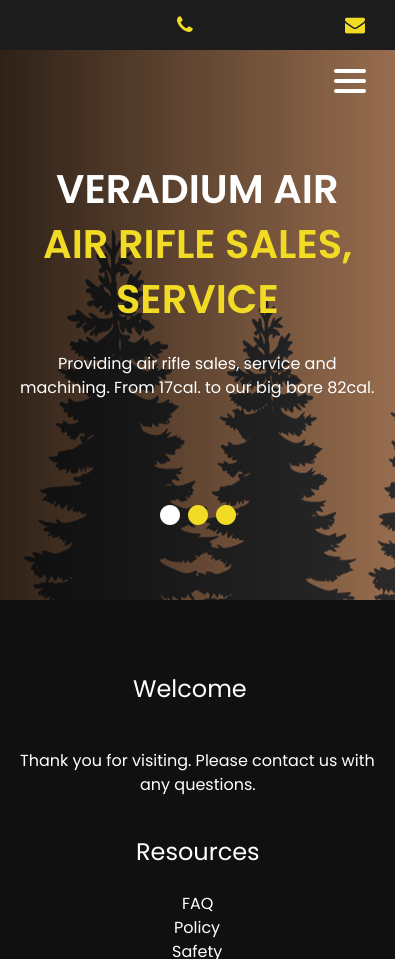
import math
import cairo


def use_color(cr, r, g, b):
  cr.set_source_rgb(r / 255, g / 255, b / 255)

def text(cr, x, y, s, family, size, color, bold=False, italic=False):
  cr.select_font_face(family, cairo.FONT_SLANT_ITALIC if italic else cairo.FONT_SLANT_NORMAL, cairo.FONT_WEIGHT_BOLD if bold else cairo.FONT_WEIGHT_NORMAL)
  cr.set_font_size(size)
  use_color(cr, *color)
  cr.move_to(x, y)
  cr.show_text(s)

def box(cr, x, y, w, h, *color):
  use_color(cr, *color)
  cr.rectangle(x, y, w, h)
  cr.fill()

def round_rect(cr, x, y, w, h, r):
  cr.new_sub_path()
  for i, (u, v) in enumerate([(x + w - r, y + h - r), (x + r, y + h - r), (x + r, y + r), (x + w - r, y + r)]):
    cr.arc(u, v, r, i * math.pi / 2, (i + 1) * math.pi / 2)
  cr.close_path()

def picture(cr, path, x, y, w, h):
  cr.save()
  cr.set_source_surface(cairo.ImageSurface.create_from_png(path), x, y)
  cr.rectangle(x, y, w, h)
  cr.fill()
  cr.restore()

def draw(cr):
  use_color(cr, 255, 255, 255)
  cr.paint()
  box(cr, 0, 0, 395, 50, 28, 28, 28)
  picture(cr, "img_01.png", 177, 16, 16, 16)
  picture(cr, "img_02.png", 345, 17, 20, 17)
  picture(cr, "img_03.png", 0, 50, 395, 550)
  gradient = cairo.LinearGradient(0, 300, 395, 300)
  gradient.add_color_stop_rgba(0, 0, 0, 0, 0.8)
  gradient.add_color_stop_rgba(1, 0, 0, 0, 0.35)
  cr.set_source(gradient)
  cr.rectangle(0, 50, 395, 550)
  cr.fill()
  use_color(cr, 255, 255, 255)
  round_rect(cr, 334, 79, 32, 4, 2)
  cr.fill()
  round_rect(cr, 334, 69, 32, 4, 2)
  cr.fill()
  round_rect(cr, 334, 89, 32, 4, 2)
  cr.fill()
  cr.arc(170, 515, 10, 0, 2 * math.pi)
  cr.fill()
  use_color(cr, 241, 219, 37)
  cr.arc(198, 515, 10, 0, 2 * math.pi)
  cr.fill()
  cr.arc(226, 515, 10, 0, 2 * math.pi)
  cr.fill()
  box(cr, 0, 600, 395, 359, 16, 16, 16)
  text(cr, 56, 203, "VERADIUM AIR", "Poppins SemiBold", 40, (255, 255, 255))
  text(cr, 43, 258, "AIR RIFLE SALES,", "Poppins SemiBold", 40, (241, 219, 37))
  text(cr, 116, 313, "SERVICE", "Poppins SemiBold", 40, (241, 219, 37))
  text(cr, 58, 369, "Providing air rifle sales, service and", "Poppins", 16, (255, 255, 255))
  text(cr, 20, 393, "machining. From 17cal. to our big bore 82cal.", "Poppins", 16, (255, 255, 255))
  text(cr, 133, 697, "Welcome", "Poppins", 24, (255, 255, 255))
  text(cr, 20, 766, "Thank you for visiting. Please contact us with", "Poppins", 16, (255, 255, 255))
  text(cr, 140, 790, "any questions.", "Poppins", 16, (255, 255, 255))
  text(cr, 136, 860, "Resources", "Poppins", 24, (255, 255, 255))
  text(cr, 182, 909, "FAQ", "Poppins", 16, (255, 255, 255))
  text(cr, 174, 933, "Policy", "Poppins", 16, (255, 255, 255))
  text(cr, 172, 957, "Safety", "Poppins", 16, (255, 255, 255))


surface = cairo.ImageSurface(cairo.FORMAT_RGB24, 395, 959)
cr = cairo.Context(surface)
options = cairo.FontOptions()
options.set_hint_metrics(cairo.HINT_METRICS_OFF)
options.set_hint_style(cairo.HINT_STYLE_NONE)
cr.set_font_options(options)
cr.set_miter_limit(4)
draw(cr)
surface.write_to_png("out.png")
